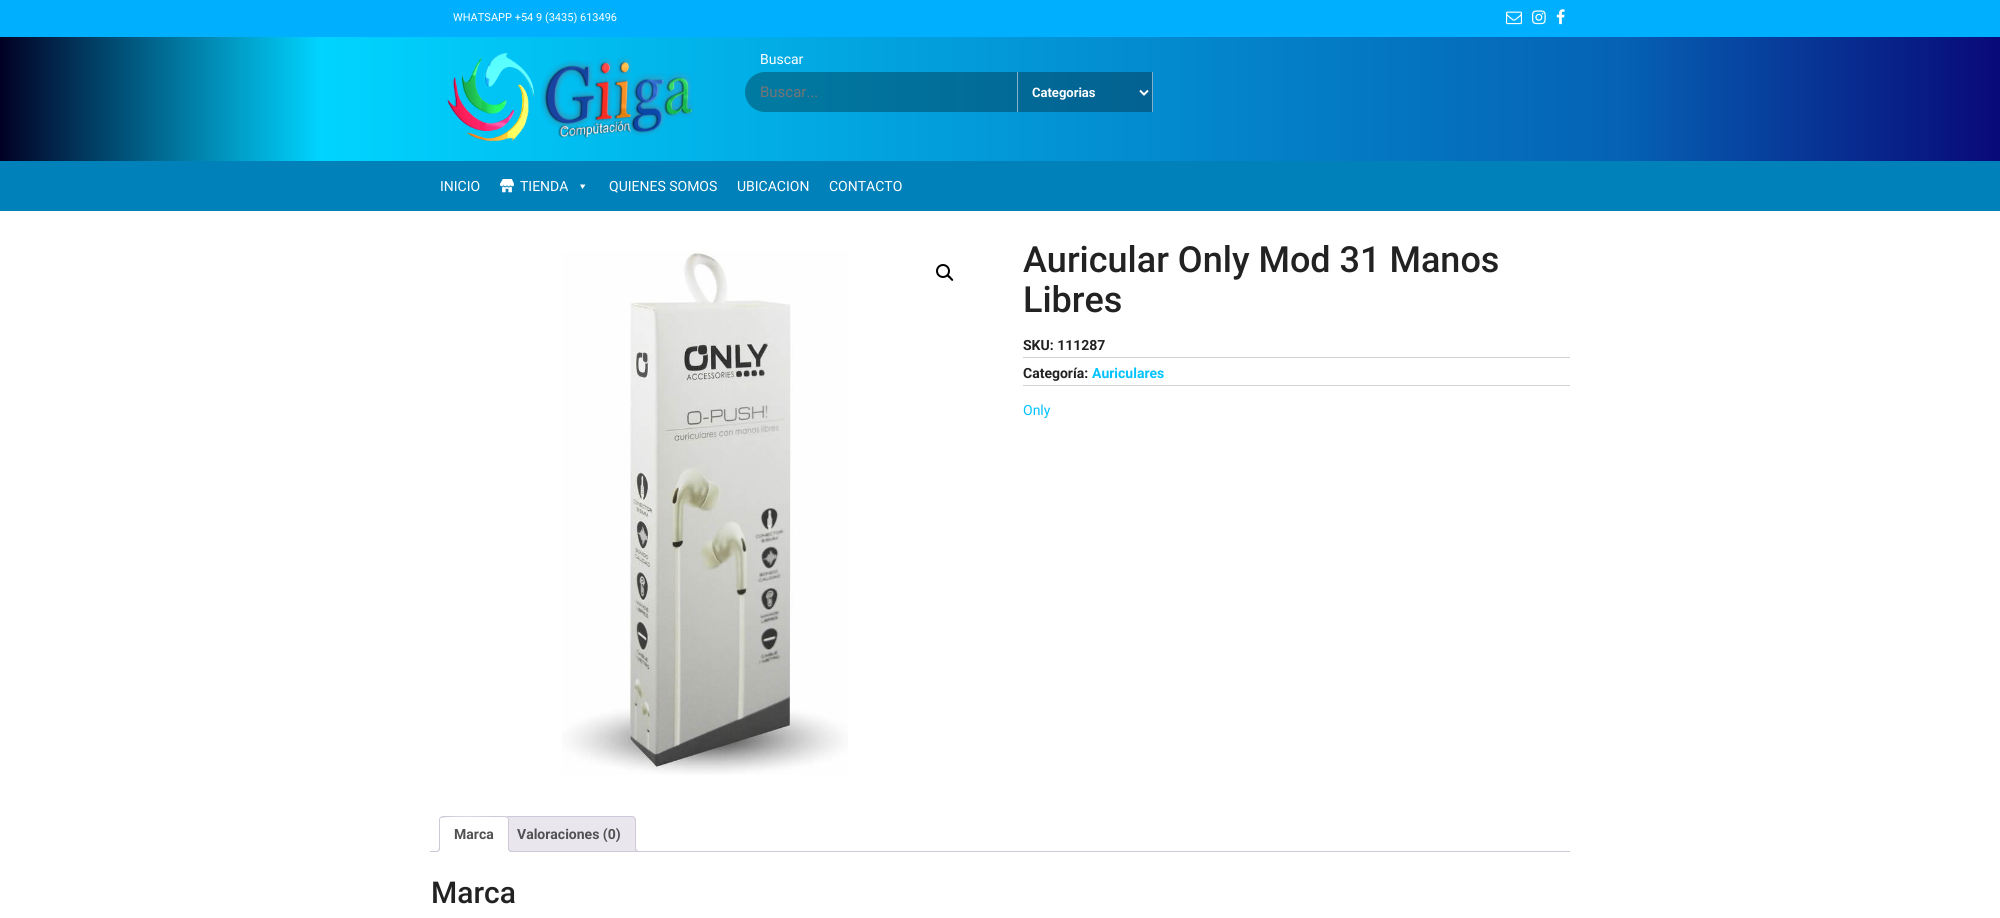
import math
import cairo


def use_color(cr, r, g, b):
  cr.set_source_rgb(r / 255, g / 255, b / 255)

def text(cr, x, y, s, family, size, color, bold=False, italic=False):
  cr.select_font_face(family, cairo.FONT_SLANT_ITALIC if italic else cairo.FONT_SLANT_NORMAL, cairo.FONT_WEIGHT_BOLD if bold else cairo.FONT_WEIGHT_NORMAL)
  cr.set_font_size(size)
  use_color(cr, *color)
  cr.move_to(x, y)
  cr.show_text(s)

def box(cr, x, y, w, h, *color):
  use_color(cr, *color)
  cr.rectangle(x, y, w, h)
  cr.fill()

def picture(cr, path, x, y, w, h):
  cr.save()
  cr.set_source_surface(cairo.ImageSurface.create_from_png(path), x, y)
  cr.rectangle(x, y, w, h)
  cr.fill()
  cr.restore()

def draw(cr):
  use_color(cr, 255, 255, 255)
  cr.paint()
  box(cr, 0, 0, 2000, 37, 0, 176, 255)
  picture(cr, "img_01.png", 1506, 11, 16, 14)
  picture(cr, "img_02.png", 1532, 10, 14, 15)
  picture(cr, "img_03.png", 1556, 9, 9, 16)
  gradient = cairo.LinearGradient(0, 99, 2000, 99)
  gradient.add_color_stop_rgba(0, 0.008, 0, 0.141, 1)
  gradient.add_color_stop_rgba(0.16, 0, 0.831, 1, 1)
  gradient.add_color_stop_rgba(0.81, 0.02, 0.384, 0.706, 1)
  gradient.add_color_stop_rgba(1, 0.035, 0.035, 0.475, 1)
  cr.set_source(gradient)
  cr.rectangle(0, 37, 2000, 124)
  cr.fill()
  gradient = cairo.LinearGradient(0, 99, 2000, 99)
  gradient.add_color_stop_rgba(0, 0.004, 0, 0.098, 1)
  gradient.add_color_stop_rgba(0.16, 0, 0.58, 0.702, 1)
  gradient.add_color_stop_rgba(0.81, 0.016, 0.271, 0.494, 1)
  gradient.add_color_stop_rgba(1, 0.024, 0.024, 0.333, 1)
  cr.set_source(gradient)
  cr.rectangle(1018, 72, 134, 40)
  cr.fill()
  picture(cr, "img_04.png", 447, 52, 247, 94)
  cr.set_source_rgba(0, 0, 0, 0.3)
  cr.new_path()
  cr.move_to(765, 72)
  cr.line_to(1017, 72)
  cr.line_to(1017, 112)
  cr.line_to(765, 112)
  cr.curve_to(754, 112, 745, 103, 745, 92)
  cr.curve_to(745, 81, 754, 72, 765, 72)
  cr.close_path()
  cr.fill()
  box(cr, 1152, 72, 1, 40, 129, 176, 200)
  box(cr, 1017, 72, 1, 40, 129, 180, 203)
  cr.new_path()
  cr.move_to(1140, 90.5)
  cr.line_to(1144, 94.5)
  cr.line_to(1148, 90.5)
  use_color(cr, 255, 255, 255)
  cr.stroke()
  box(cr, 0, 161, 2000, 50, 0, 129, 186)
  picture(cr, "img_05.png", 500, 179, 14, 14)
  use_color(cr, 255, 255, 255)
  cr.new_path()
  cr.move_to(585.5, 184.5)
  cr.line_to(582.5, 189)
  cr.line_to(580, 184.5)
  cr.close_path()
  cr.fill()
  picture(cr, "img_06.png", 562, 251, 286, 524)
  cr.arc(943, 271, 6, 0, 2 * math.pi)
  use_color(cr, 0, 0, 0)
  cr.stroke()
  cr.new_path()
  cr.move_to(947.5, 275)
  cr.curve_to(948.5, 274, 950.5, 276.5, 951, 277)
  cr.curve_to(951.5, 278, 954, 279.5, 953, 280.5)
  cr.curve_to(952, 282, 950, 279, 949.5, 278.5)
  cr.curve_to(949, 278, 946, 276.5, 947.5, 275)
  cr.close_path()
  cr.fill()
  box(cr, 1023, 357, 547, 1, 211, 211, 211)
  box(cr, 1023, 385, 547, 1, 211, 211, 211)
  use_color(cr, 233, 230, 237)
  cr.new_path()
  cr.move_to(506, 816.5)
  cr.line_to(632, 816.5)
  cr.curve_to(634, 816.5, 635.5, 818, 635.5, 820)
  cr.line_to(635.5, 851.5)
  cr.line_to(502.5, 851.5)
  cr.line_to(502.5, 820)
  cr.curve_to(502.5, 818, 504, 816.5, 506, 816.5)
  cr.close_path()
  cr.fill_preserve()
  use_color(cr, 207, 200, 216)
  cr.set_line_width(1)
  cr.stroke()
  cr.save()
  cr.rectangle(430, 816, 1140, 36)
  cr.clip()
  use_color(cr, 233, 230, 237)
  cr.new_path()
  cr.move_to(633, 849)
  cr.curve_to(633, 852.5, 634.5, 854, 638, 854)
  cr.line_to(638, 852)
  cr.curve_to(636.5, 851.5, 635.5, 850.5, 635, 849)
  cr.close_path()
  cr.fill()
  cr.restore()
  cr.set_fill_rule(cairo.FILL_RULE_EVEN_ODD)
  cr.new_path()
  cr.move_to(635, 847)
  cr.line_to(640, 847)
  cr.line_to(640, 852)
  cr.curve_to(637.5, 852, 635, 851, 635, 848)
  cr.close_path()
  cr.move_to(636, 847)
  cr.line_to(640, 847)
  cr.line_to(640, 851)
  cr.curve_to(638, 851, 636, 850.5, 636, 848)
  cr.close_path()
  cr.fill()
  box(cr, 430, 851, 1140, 1, 207, 200, 216)
  use_color(cr, 255, 255, 255)
  cr.new_path()
  cr.move_to(443, 816)
  cr.line_to(505, 816)
  cr.curve_to(507, 816, 509, 818, 509, 820)
  cr.line_to(509, 852)
  cr.line_to(439, 852)
  cr.line_to(439, 820)
  cr.curve_to(439, 818, 441, 816, 443, 816)
  cr.close_path()
  cr.fill()
  use_color(cr, 207, 200, 216)
  cr.set_fill_rule(cairo.FILL_RULE_WINDING)
  cr.new_path()
  cr.move_to(443, 816)
  cr.line_to(440, 817)
  cr.line_to(441, 818)
  cr.curve_to(443, 816, 489, 817, 495, 817)
  cr.line_to(505, 817)
  cr.line_to(507, 818)
  cr.line_to(508, 817)
  cr.line_to(505, 816)
  cr.close_path()
  cr.fill()
  cr.new_path()
  cr.move_to(509, 852)
  cr.line_to(509, 820)
  cr.curve_to(509, 819, 508.5, 818, 508, 817)
  cr.line_to(507, 818)
  cr.curve_to(508, 818, 508, 819, 508, 820)
  cr.line_to(508, 851)
  cr.close_path()
  cr.fill()
  use_color(cr, 255, 255, 255)
  cr.new_path()
  cr.move_to(509, 852)
  cr.line_to(508, 851)
  cr.line_to(440, 851)
  cr.line_to(439, 852)
  cr.close_path()
  cr.fill()
  use_color(cr, 207, 200, 216)
  cr.new_path()
  cr.move_to(439, 852)
  cr.line_to(440, 851)
  cr.line_to(440, 820)
  cr.curve_to(440, 819, 440, 818, 441, 818)
  cr.line_to(440, 817)
  cr.curve_to(439.5, 818, 439, 819, 439, 820)
  cr.close_path()
  cr.fill()
  cr.save()
  cr.rectangle(430, 816, 1140, 36)
  cr.clip()
  use_color(cr, 255, 255, 255)
  cr.new_path()
  cr.move_to(437, 852)
  cr.line_to(437, 854)
  cr.curve_to(440.5, 854, 442, 852.5, 442, 849)
  cr.line_to(440, 849)
  cr.curve_to(439.5, 850.5, 438.5, 851.5, 437, 852)
  cr.close_path()
  cr.fill()
  cr.restore()
  cr.set_fill_rule(cairo.FILL_RULE_EVEN_ODD)
  cr.new_path()
  cr.move_to(435, 847)
  cr.line_to(440, 847)
  cr.curve_to(440, 850.5, 438.5, 852, 435, 852)
  cr.close_path()
  cr.move_to(435, 847)
  cr.line_to(439, 847)
  cr.curve_to(439, 850, 438, 851, 435, 851)
  cr.close_path()
  cr.fill()
  cr.save()
  cr.set_fill_rule(cairo.FILL_RULE_WINDING)
  cr.rectangle(430, 816, 1140, 36)
  cr.clip()
  use_color(cr, 255, 255, 255)
  cr.new_path()
  cr.move_to(506, 849)
  cr.curve_to(506, 852.5, 507.5, 854, 511, 854)
  cr.line_to(511, 852)
  cr.curve_to(509.5, 851.5, 508.5, 850.5, 508, 849)
  cr.close_path()
  cr.fill()
  cr.restore()
  cr.new_path()
  cr.move_to(508, 847)
  cr.line_to(513, 847)
  cr.line_to(513, 852)
  cr.curve_to(510.5, 852, 508, 851, 508, 848)
  cr.close_path()
  cr.move_to(509, 847)
  cr.line_to(513, 847)
  cr.line_to(513, 851)
  cr.curve_to(511, 851, 509, 850.5, 509, 848)
  cr.close_path()
  cr.fill()
  text(cr, 453, 21, "WHATSAPP +54 9 (3435) 613496", "Roboto", 11, (255, 255, 255))
  text(cr, 760, 64, "Buscar", "Roboto", 14, (255, 255, 255))
  text(cr, 760, 97, "Buscar...", "Roboto", 15, (117, 117, 117))
  text(cr, 1032, 97, "Categorias", "Roboto", 13, (255, 255, 255), bold=True)
  text(cr, 440, 191, "INICIO", "Roboto", 14, (255, 255, 255))
  text(cr, 520, 191, "TIENDA", "Roboto", 14, (255, 255, 255))
  text(cr, 609, 191, "QUIENES SOMOS", "Roboto", 14, (255, 255, 255))
  text(cr, 737, 191, "UBICACION", "Roboto", 14, (255, 255, 255))
  text(cr, 829, 191, "CONTACTO", "Roboto", 14, (255, 255, 255))
  text(cr, 1023, 272, "Auricular Only Mod 31 Manos", "Roboto Medium", 36, (34, 34, 34))
  text(cr, 1023, 312, "Libres", "Roboto Medium", 36, (34, 34, 34))
  text(cr, 1023, 350, "SKU: 111287", "Roboto", 14, (34, 34, 34), bold=True)
  text(cr, 1023, 378, "Categoría:", "Roboto", 14, (34, 34, 34), bold=True)
  text(cr, 1092, 378, "Auriculares", "Roboto", 14, (0, 194, 255), bold=True)
  text(cr, 1023, 415, "Only", "Roboto", 14, (0, 194, 255))
  text(cr, 454, 839, "Marca", "Roboto", 14, (81, 81, 81), bold=True)
  text(cr, 517, 839, "Valoraciones (0)", "Roboto", 14, (81, 81, 81), bold=True)
  text(cr, 431, 903, "Marca", "Roboto Medium", 30, (34, 34, 34))


surface = cairo.ImageSurface(cairo.FORMAT_RGB24, 2000, 918)
cr = cairo.Context(surface)
options = cairo.FontOptions()
options.set_hint_metrics(cairo.HINT_METRICS_OFF)
options.set_hint_style(cairo.HINT_STYLE_NONE)
cr.set_font_options(options)
cr.set_miter_limit(4)
draw(cr)
surface.write_to_png("out.png")
